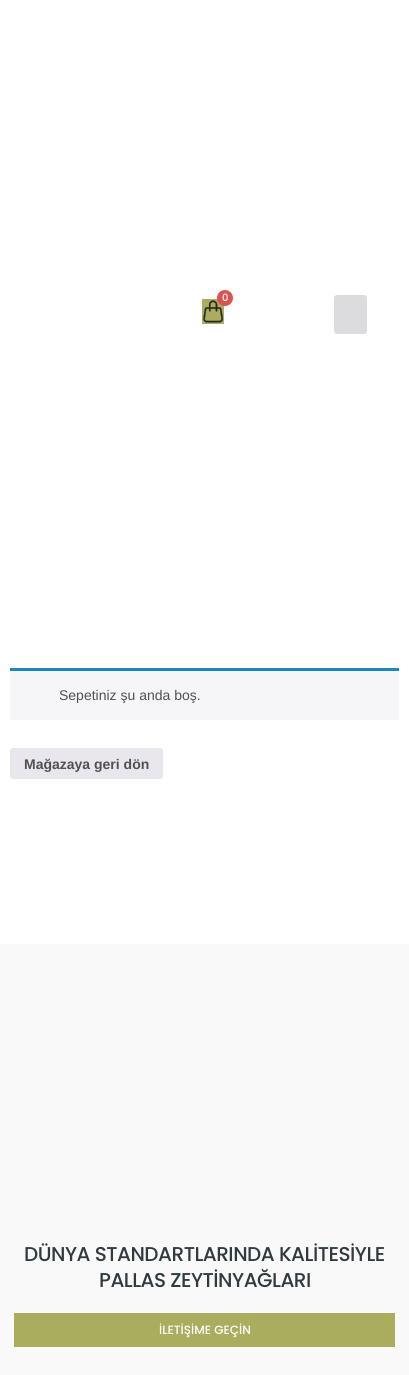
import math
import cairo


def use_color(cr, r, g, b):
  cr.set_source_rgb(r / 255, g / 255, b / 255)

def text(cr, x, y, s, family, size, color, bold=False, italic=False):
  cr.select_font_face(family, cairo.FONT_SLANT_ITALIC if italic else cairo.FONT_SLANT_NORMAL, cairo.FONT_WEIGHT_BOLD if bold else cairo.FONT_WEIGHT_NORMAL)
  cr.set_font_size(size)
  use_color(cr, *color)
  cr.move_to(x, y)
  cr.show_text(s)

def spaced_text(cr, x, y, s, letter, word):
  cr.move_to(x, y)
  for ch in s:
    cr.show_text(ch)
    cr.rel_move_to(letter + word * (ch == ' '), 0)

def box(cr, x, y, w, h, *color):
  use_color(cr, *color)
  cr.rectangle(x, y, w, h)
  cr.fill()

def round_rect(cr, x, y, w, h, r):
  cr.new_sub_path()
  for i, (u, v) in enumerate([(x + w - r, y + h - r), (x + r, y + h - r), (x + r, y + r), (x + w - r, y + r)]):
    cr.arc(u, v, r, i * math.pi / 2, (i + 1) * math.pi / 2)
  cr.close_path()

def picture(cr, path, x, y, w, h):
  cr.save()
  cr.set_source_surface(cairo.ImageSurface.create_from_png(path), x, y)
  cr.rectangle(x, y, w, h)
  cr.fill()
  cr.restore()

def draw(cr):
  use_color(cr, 255, 255, 255)
  cr.paint()
  box(cr, 202, 299, 22, 25, 169, 173, 93)
  picture(cr, "img_01.png", 203, 300, 20, 23)
  use_color(cr, 217, 83, 79)
  cr.arc(225, 298, 8, 0, 2 * math.pi)
  cr.fill()
  use_color(cr, 220, 220, 222)
  round_rect(cr, 334, 295, 33, 39, 3)
  cr.fill()
  box(cr, 10, 671, 389, 49, 246, 245, 248)
  box(cr, 10, 668, 389, 3, 30, 133, 190)
  use_color(cr, 233, 230, 237)
  round_rect(cr, 10, 748, 153, 31, 3)
  cr.fill()
  box(cr, 0, 944, 409, 431, 249, 249, 249)
  box(cr, 14, 1313, 381, 34, 169, 173, 93)
  text(cr, 222, 301, "0", "Poppins Medium", 10, (255, 255, 255))
  text(cr, 59, 700, "Sepetiniz şu anda boş.", "Liberation Sans", 14, (81, 81, 81))
  text(cr, 24, 769, "Mağazaya geri dön", "Liberation Sans", 14, (81, 81, 81), bold=True)
  cr.select_font_face("Poppins Medium")
  cr.set_font_size(20)
  use_color(cr, 48, 59, 65)
  spaced_text(cr, 24, 1261, "DÜNYA STANDARTLARINDA KALİTESİYLE", -0.5, 0)
  spaced_text(cr, 99, 1287, "PALLAS ZEYTİNYAĞLARI", -0.5, 0)
  text(cr, 159, 1334, "İLETİŞİME GEÇİN", "Poppins Medium", 12, (255, 255, 255))


surface = cairo.ImageSurface(cairo.FORMAT_RGB24, 409, 1375)
cr = cairo.Context(surface)
options = cairo.FontOptions()
options.set_hint_metrics(cairo.HINT_METRICS_OFF)
options.set_hint_style(cairo.HINT_STYLE_NONE)
cr.set_font_options(options)
cr.set_miter_limit(4)
draw(cr)
surface.write_to_png("out.png")
